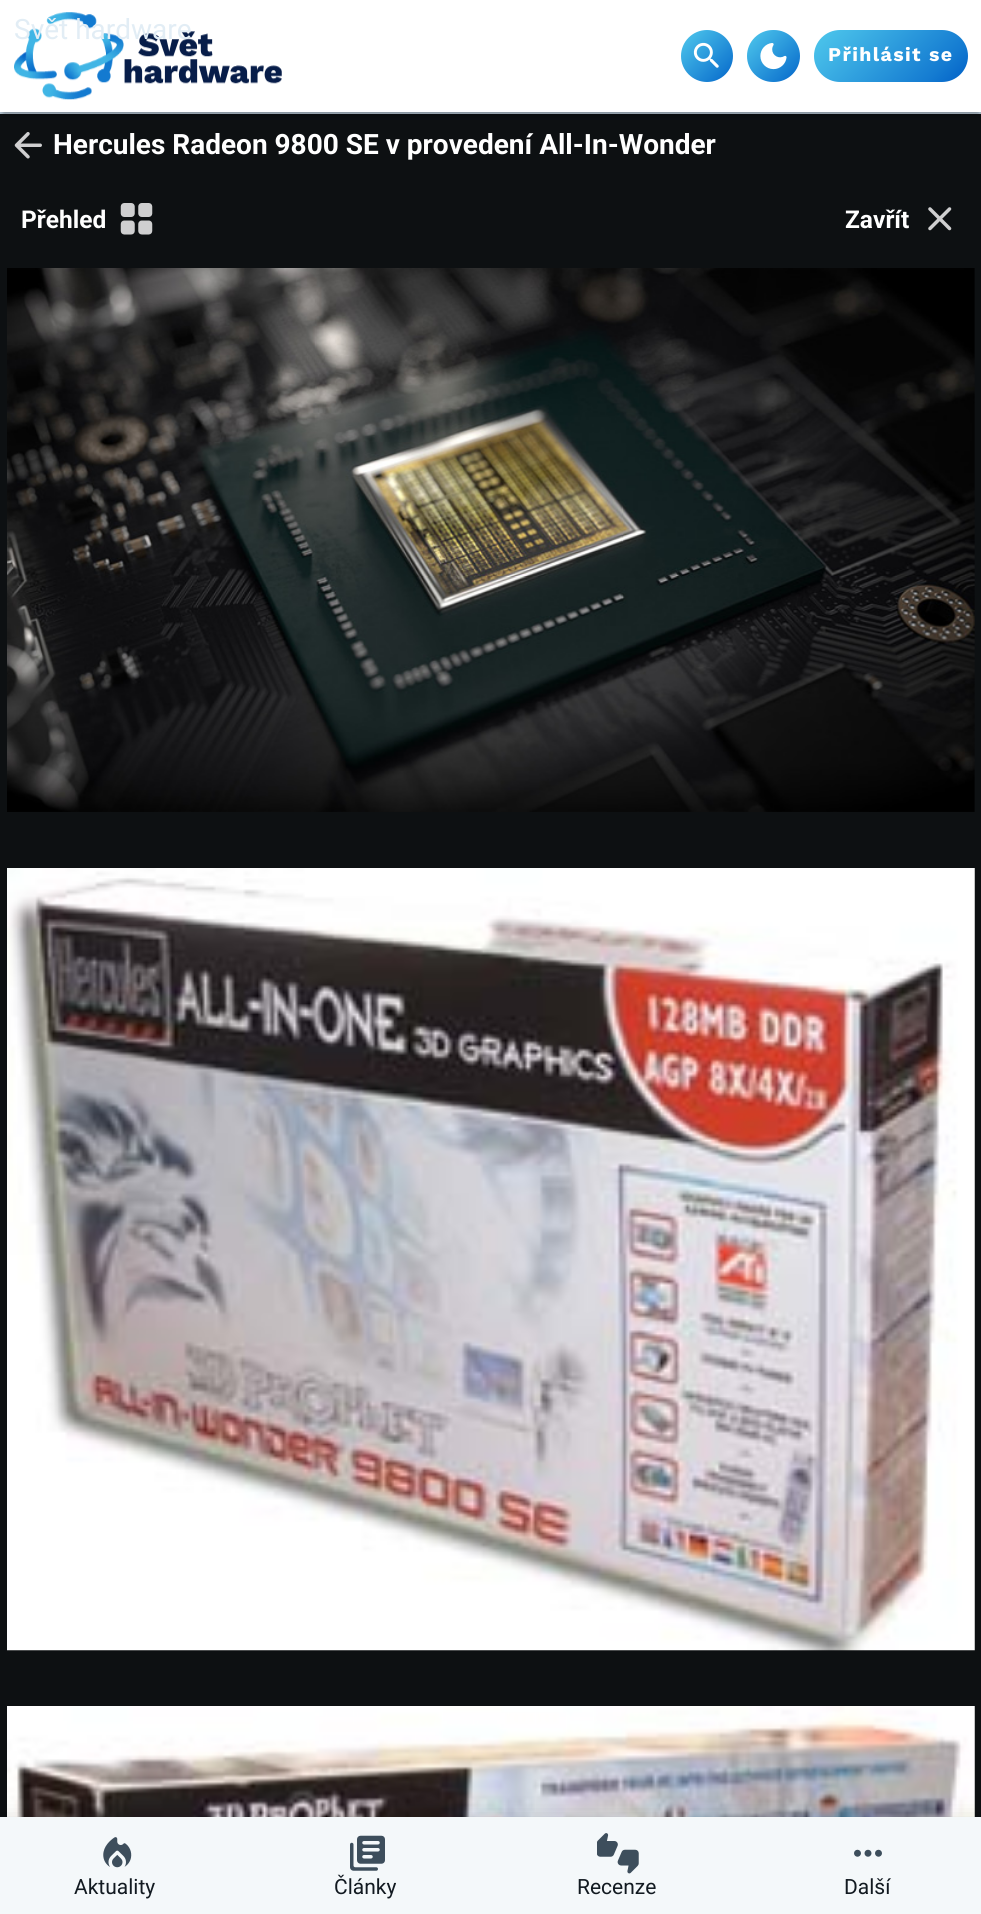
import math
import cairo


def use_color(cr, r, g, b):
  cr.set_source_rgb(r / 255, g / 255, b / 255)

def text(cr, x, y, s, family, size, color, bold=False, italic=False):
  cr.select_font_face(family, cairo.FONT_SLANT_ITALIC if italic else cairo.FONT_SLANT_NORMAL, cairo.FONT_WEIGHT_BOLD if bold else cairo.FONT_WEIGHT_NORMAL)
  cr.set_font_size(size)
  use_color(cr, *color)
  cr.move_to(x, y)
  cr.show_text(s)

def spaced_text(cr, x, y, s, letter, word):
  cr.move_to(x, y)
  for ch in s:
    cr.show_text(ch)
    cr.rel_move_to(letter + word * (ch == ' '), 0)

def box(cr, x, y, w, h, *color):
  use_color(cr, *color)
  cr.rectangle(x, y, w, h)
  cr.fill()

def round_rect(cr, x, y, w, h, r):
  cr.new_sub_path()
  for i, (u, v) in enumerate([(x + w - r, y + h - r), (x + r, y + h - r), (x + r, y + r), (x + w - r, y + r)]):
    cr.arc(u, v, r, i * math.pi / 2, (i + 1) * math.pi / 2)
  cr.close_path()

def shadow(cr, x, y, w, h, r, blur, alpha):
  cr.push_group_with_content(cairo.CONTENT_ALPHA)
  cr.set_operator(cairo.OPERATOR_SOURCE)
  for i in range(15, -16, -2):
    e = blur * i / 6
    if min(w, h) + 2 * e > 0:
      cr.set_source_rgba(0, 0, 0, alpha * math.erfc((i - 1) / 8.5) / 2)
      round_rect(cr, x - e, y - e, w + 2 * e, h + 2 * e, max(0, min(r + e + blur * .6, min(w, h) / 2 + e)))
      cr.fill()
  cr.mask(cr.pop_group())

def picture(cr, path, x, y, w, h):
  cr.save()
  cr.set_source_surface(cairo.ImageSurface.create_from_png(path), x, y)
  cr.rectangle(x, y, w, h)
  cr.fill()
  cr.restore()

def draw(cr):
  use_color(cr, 13, 16, 18)
  cr.paint()
  box(cr, 0, 112, 981, 2, 201, 218, 232)
  picture(cr, "img_04.png", 14, 132, 28, 27)
  use_color(cr, 0, 0, 0)
  shadow(cr, 0, 2, 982, 112, 0, 7, 0.12)
  shadow(cr, 0, 5, 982, 112, 0, 3.5, 0.14)
  shadow(cr, 4, 9, 974, 105, 0, 2.5, 0.2)
  box(cr, 0, 0, 981, 112, 255, 255, 255)
  picture(cr, "img_01.png", 14, 12, 268, 88)
  gradient = cairo.LinearGradient(681, 30, 733, 82)
  gradient.add_color_stop_rgba(0, 0.306, 0.784, 0.925, 1)
  gradient.add_color_stop_rgba(0.2, 0.255, 0.714, 0.902, 1)
  gradient.add_color_stop_rgba(0.8, 0.078, 0.482, 0.82, 1)
  gradient.add_color_stop_rgba(1, 0, 0.373, 0.78, 1)
  cr.set_source(gradient)
  cr.arc(707, 56, 26, 0, 2 * math.pi)
  cr.fill()
  picture(cr, "img_02.png", 693, 42, 26, 26)
  gradient = cairo.LinearGradient(747, 30, 800, 82)
  gradient.add_color_stop_rgba(0, 0.306, 0.784, 0.925, 1)
  gradient.add_color_stop_rgba(0.2, 0.255, 0.714, 0.902, 1)
  gradient.add_color_stop_rgba(0.8, 0.078, 0.482, 0.82, 1)
  gradient.add_color_stop_rgba(1, 0, 0.373, 0.78, 1)
  cr.set_source(gradient)
  round_rect(cr, 747, 30, 53, 52, 26)
  cr.fill()
  picture(cr, "img_03.png", 760, 43, 27, 27)
  gradient = cairo.LinearGradient(839, 4.4, 942, 108)
  gradient.add_color_stop_rgba(0, 0.306, 0.784, 0.925, 1)
  gradient.add_color_stop_rgba(0.2, 0.255, 0.714, 0.902, 1)
  gradient.add_color_stop_rgba(0.8, 0.078, 0.482, 0.82, 1)
  gradient.add_color_stop_rgba(1, 0, 0.373, 0.78, 1)
  cr.set_source(gradient)
  round_rect(cr, 814, 30, 154, 52, 26)
  cr.fill()
  picture(cr, "img_05.png", 120, 203, 33, 32)
  picture(cr, "img_06.png", 928, 207, 24, 24)
  picture(cr, "img_07.png", 7, 268, 968, 544)
  picture(cr, "img_08.png", 7, 868, 968, 783)
  picture(cr, "img_09.png", 7, 1706, 968, 111)
  use_color(cr, 0, 0, 0)
  shadow(cr, -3, 1818, 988, 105, 0, 12, 0.12)
  box(cr, 0, 1817, 981, 97, 244, 248, 250)
  picture(cr, "img_10.png", 103, 1837, 29, 31)
  picture(cr, "img_11.png", 350, 1835, 35, 36)
  picture(cr, "img_12.png", 597, 1833, 42, 41)
  picture(cr, "img_13.png", 854, 1849, 28, 8)
  text(cr, 14, 39, "Svět hardware", "Roboto", 28, (226, 237, 245))
  cr.select_font_face("Work Sans", cairo.FONT_SLANT_NORMAL, cairo.FONT_WEIGHT_BOLD)
  cr.set_font_size(19.5)
  use_color(cr, 255, 255, 255)
  spaced_text(cr, 828, 61, "Přihlásit se", 1.4, 0)
  text(cr, 53, 154, "Hercules Radeon 9800 SE v provedení All-In-Wonder", "Roboto", 28, (255, 255, 255), bold=True)
  text(cr, 21, 228, "Přehled", "Roboto", 24.5, (255, 255, 255), bold=True)
  text(cr, 845, 228, "Zavřít", "Roboto", 24.5, (255, 255, 255), bold=True)
  text(cr, 74, 1894, "Aktuality", "Roboto", 21, (18, 26, 33))
  text(cr, 334, 1894, "Články", "Roboto", 21, (18, 26, 33))
  text(cr, 577, 1894, "Recenze", "Roboto", 21, (18, 26, 33))
  text(cr, 844, 1894, "Další", "Roboto", 21, (18, 26, 33))


surface = cairo.ImageSurface(cairo.FORMAT_RGB24, 981, 1914)
cr = cairo.Context(surface)
options = cairo.FontOptions()
options.set_hint_metrics(cairo.HINT_METRICS_OFF)
options.set_hint_style(cairo.HINT_STYLE_NONE)
cr.set_font_options(options)
cr.set_miter_limit(4)
draw(cr)
surface.write_to_png("out.png")
